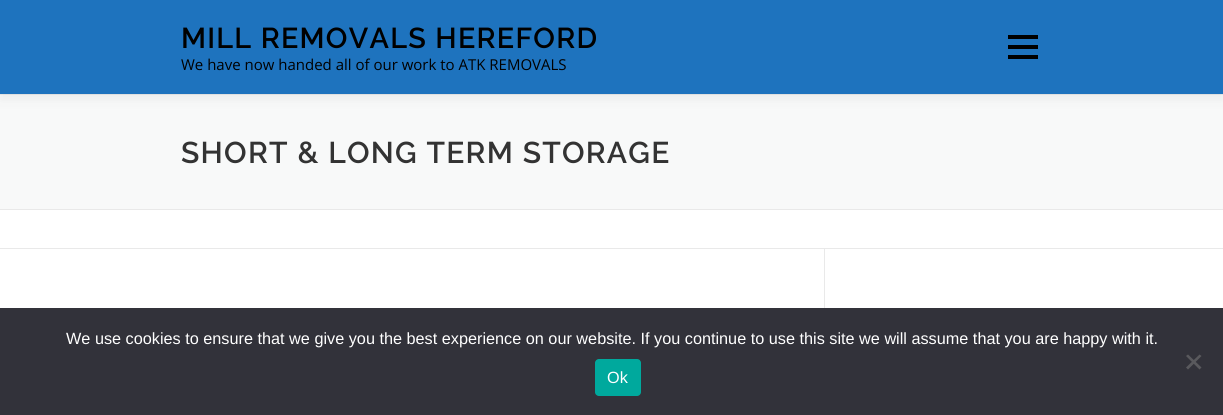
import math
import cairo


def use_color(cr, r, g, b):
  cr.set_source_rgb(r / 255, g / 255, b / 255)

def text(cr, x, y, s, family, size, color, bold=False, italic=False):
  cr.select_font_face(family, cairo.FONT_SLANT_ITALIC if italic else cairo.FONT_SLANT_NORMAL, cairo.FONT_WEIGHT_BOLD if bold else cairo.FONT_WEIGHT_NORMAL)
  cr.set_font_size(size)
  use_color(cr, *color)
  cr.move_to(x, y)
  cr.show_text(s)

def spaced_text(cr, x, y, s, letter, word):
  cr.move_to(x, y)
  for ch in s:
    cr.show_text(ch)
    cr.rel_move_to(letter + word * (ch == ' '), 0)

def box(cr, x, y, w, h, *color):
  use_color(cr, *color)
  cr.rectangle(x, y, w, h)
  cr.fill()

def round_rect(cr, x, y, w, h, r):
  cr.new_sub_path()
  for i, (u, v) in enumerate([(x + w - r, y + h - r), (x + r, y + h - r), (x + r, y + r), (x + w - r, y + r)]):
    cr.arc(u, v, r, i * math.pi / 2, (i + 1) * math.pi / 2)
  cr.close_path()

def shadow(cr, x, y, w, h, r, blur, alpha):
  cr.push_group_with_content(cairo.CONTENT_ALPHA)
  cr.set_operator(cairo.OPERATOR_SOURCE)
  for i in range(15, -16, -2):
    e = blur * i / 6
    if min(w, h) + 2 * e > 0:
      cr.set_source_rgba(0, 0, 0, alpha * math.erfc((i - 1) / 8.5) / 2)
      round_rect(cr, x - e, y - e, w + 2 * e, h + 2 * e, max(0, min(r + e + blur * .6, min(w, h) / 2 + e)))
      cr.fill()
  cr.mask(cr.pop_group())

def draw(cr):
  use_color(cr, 255, 255, 255)
  cr.paint()
  box(cr, 0, 95, 1223, 114, 248, 249, 249)
  box(cr, 0, 94, 1223, 1, 233, 233, 233)
  use_color(cr, 50, 50, 50)
  shadow(cr, 0, 6, 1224, 94, 0, 6, 0.06)
  box(cr, 0, 0, 1223, 94, 30, 115, 190)
  box(cr, 1008, 45, 30, 4, 0, 0, 0)
  box(cr, 1008, 35, 30, 4, 0, 0, 0)
  box(cr, 1008, 55, 30, 4, 0, 0, 0)
  box(cr, 0, 209, 1223, 1, 233, 233, 233)
  box(cr, 0, 248, 1223, 1, 233, 233, 233)
  box(cr, 824, 249, 1, 59, 233, 233, 233)
  box(cr, 0, 308, 1223, 107, 50, 50, 58)
  use_color(cr, 89, 89, 93)
  cr.new_path()
  cr.move_to(1199.5, 354.5)
  cr.line_to(1201.5, 356)
  cr.line_to(1188, 369.5)
  cr.line_to(1186, 367.5)
  cr.close_path()
  cr.fill()
  cr.new_path()
  cr.move_to(1186, 356)
  cr.line_to(1188, 354.5)
  cr.line_to(1201.5, 367.5)
  cr.line_to(1199.5, 369.5)
  cr.close_path()
  cr.fill()
  use_color(cr, 0, 169, 157)
  round_rect(cr, 595, 359, 46, 37, 4)
  cr.fill()
  cr.select_font_face("Raleway SemiBold")
  cr.set_font_size(28.75)
  use_color(cr, 0, 0, 0)
  spaced_text(cr, 181, 48, "MILL REMOVALS HEREFORD", 1.25, 0)
  text(cr, 181, 70, "We have now handed all of our work to ATK REMOVALS", "Open Sans", 15, (0, 0, 0))
  cr.select_font_face("Raleway SemiBold")
  cr.set_font_size(30)
  use_color(cr, 51, 51, 51)
  spaced_text(cr, 181, 163, "SHORT & LONG TERM STORAGE", 1.25, 0)
  text(cr, 66, 344, "We use cookies to ensure that we give you the best experience on our website. If you continue to use this site we will assume that you are happy with it.", "Liberation Sans", 16.25, (255, 255, 255))
  text(cr, 607, 383, "Ok", "Liberation Sans", 16.25, (255, 255, 255))


surface = cairo.ImageSurface(cairo.FORMAT_RGB24, 1223, 415)
cr = cairo.Context(surface)
options = cairo.FontOptions()
options.set_hint_metrics(cairo.HINT_METRICS_OFF)
options.set_hint_style(cairo.HINT_STYLE_NONE)
cr.set_font_options(options)
cr.set_miter_limit(4)
draw(cr)
surface.write_to_png("out.png")
